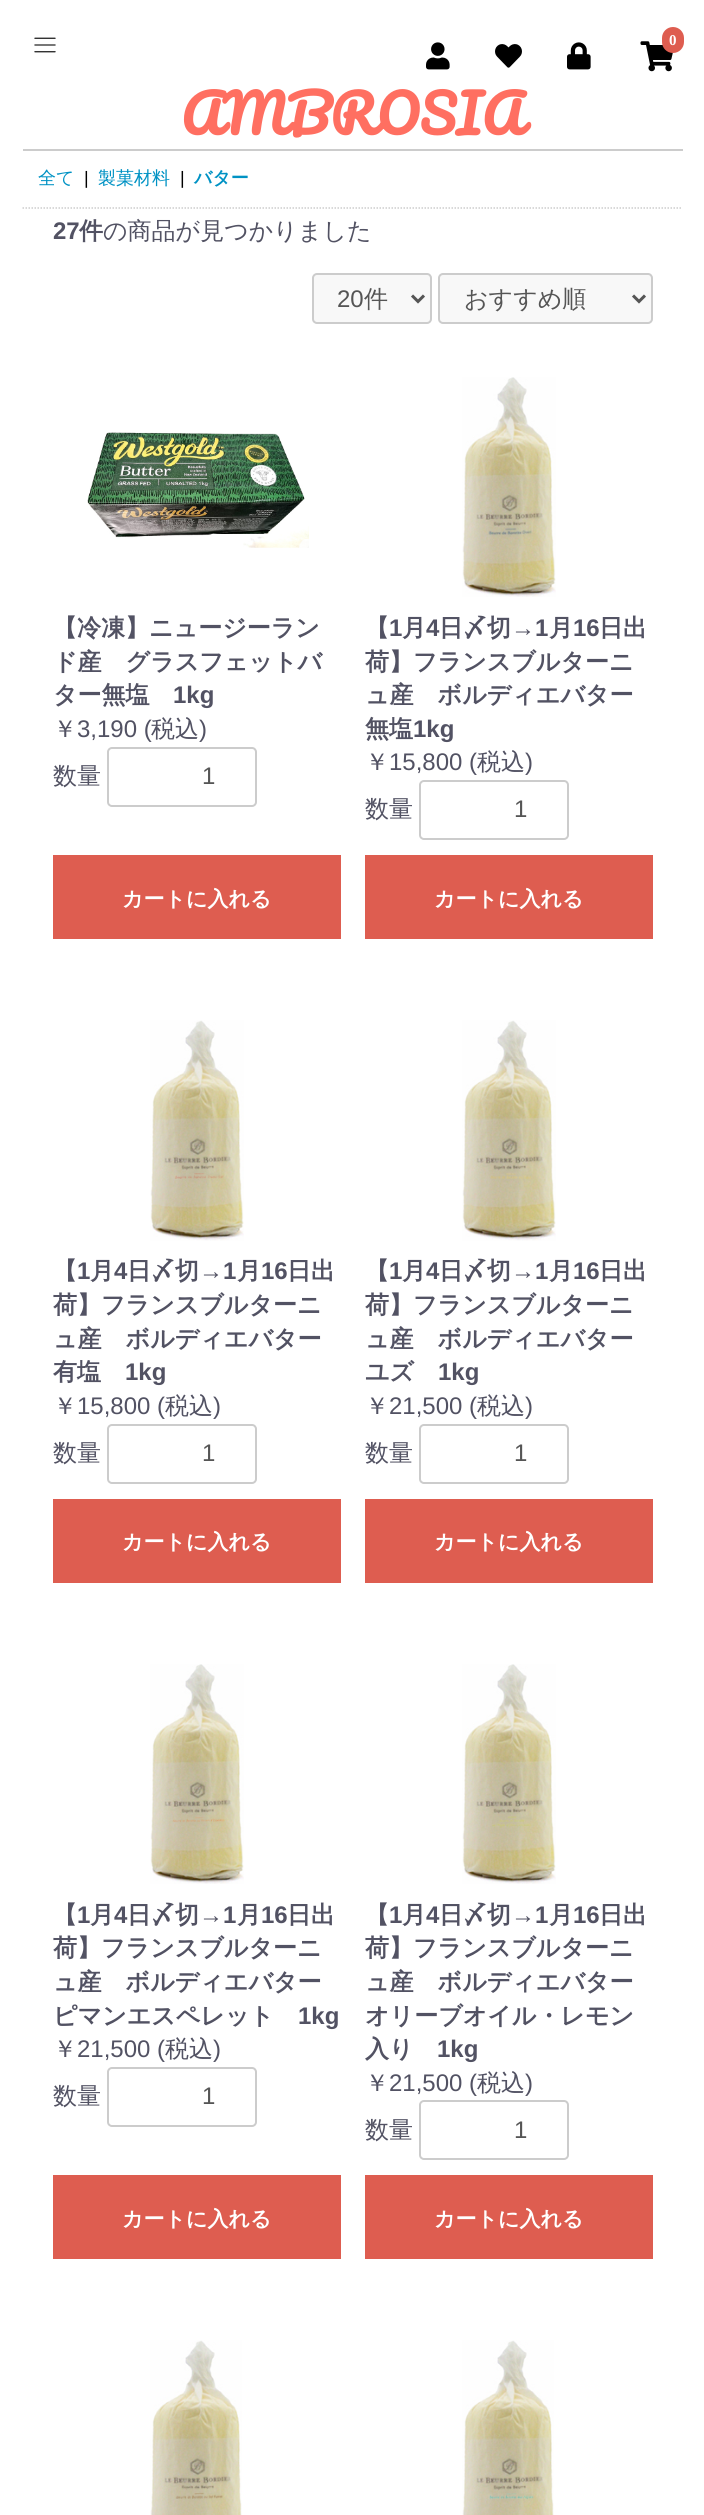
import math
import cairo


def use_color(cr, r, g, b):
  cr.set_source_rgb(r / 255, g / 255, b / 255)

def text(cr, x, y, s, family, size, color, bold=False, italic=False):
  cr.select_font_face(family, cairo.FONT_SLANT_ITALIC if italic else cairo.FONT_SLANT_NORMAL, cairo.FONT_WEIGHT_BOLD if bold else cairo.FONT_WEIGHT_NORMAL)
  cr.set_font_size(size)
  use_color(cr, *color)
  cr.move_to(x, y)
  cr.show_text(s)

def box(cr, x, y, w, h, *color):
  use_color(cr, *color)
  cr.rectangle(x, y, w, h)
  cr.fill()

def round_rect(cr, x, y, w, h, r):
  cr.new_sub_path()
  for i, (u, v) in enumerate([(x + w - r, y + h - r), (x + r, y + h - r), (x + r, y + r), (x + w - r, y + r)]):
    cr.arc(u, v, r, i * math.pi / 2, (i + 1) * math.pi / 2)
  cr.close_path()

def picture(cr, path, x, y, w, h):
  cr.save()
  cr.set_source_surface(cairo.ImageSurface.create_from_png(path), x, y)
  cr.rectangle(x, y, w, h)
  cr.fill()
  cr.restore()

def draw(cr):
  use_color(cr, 255, 255, 255)
  cr.paint()
  picture(cr, "img_01.png", 640, 41, 33, 31)
  use_color(cr, 222, 93, 80)
  round_rect(cr, 662, 27, 22, 26, 11)
  cr.fill()
  picture(cr, "img_02.png", 426, 42, 24, 28)
  picture(cr, "img_03.png", 495, 44, 27, 24)
  picture(cr, "img_04.png", 567, 42, 24, 28)
  box(cr, 23, 149, 660, 2, 204, 204, 204)
  cr.new_path()
  cr.move_to(22.5, 208)
  cr.line_to(682.5, 208)
  cr.set_line_width(1.5)
  cr.set_dash([1.5, 1.5])
  cr.stroke()
  use_color(cr, 248, 248, 248)
  round_rect(cr, 313, 274, 118, 49, 4)
  cr.fill_preserve()
  use_color(cr, 204, 204, 204)
  cr.set_line_width(2)
  cr.set_dash([])
  cr.stroke()
  cr.new_path()
  cr.move_to(412, 295.5)
  cr.line_to(418, 301.5)
  cr.line_to(424, 295.5)
  use_color(cr, 85, 85, 85)
  cr.set_line_width(3)
  cr.stroke()
  use_color(cr, 248, 248, 248)
  round_rect(cr, 439, 274, 213, 49, 4)
  cr.fill_preserve()
  use_color(cr, 204, 204, 204)
  cr.set_line_width(2)
  cr.stroke()
  cr.new_path()
  cr.move_to(633, 295.5)
  cr.line_to(639, 301.5)
  cr.line_to(645, 295.5)
  use_color(cr, 85, 85, 85)
  cr.set_line_width(3)
  cr.stroke()
  picture(cr, "img_05.png", 87, 432, 222, 116)
  round_rect(cr, 108, 748, 148, 58, 4)
  use_color(cr, 204, 204, 204)
  cr.set_line_width(2)
  cr.stroke()
  box(cr, 53, 855, 288, 84, 222, 93, 80)
  picture(cr, "img_06.png", 462, 377, 94, 220)
  round_rect(cr, 420, 781, 148, 58, 4)
  use_color(cr, 204, 204, 204)
  cr.stroke()
  box(cr, 365, 855, 288, 84, 222, 93, 80)
  picture(cr, "img_07.png", 150, 1020, 94, 221)
  round_rect(cr, 108, 1425, 148, 58, 4)
  use_color(cr, 204, 204, 204)
  cr.stroke()
  box(cr, 53, 1499, 288, 84, 222, 93, 80)
  picture(cr, "img_08.png", 462, 1020, 94, 221)
  round_rect(cr, 420, 1425, 148, 58, 4)
  use_color(cr, 204, 204, 204)
  cr.stroke()
  box(cr, 365, 1499, 288, 84, 222, 93, 80)
  picture(cr, "img_09.png", 150, 1664, 94, 220)
  round_rect(cr, 108, 2068, 148, 58, 4)
  use_color(cr, 204, 204, 204)
  cr.stroke()
  box(cr, 53, 2175, 288, 84, 222, 93, 80)
  picture(cr, "img_10.png", 462, 1664, 94, 220)
  round_rect(cr, 420, 2101, 148, 58, 4)
  use_color(cr, 204, 204, 204)
  cr.stroke()
  box(cr, 365, 2175, 288, 84, 222, 93, 80)
  picture(cr, "img_11.png", 150, 2340, 92, 175)
  picture(cr, "img_12.png", 462, 2340, 92, 175)
  picture(cr, "img_13.png", 34, 37, 22, 16)
  text(cr, 669, 45, "0", "Liberation Serif", 15, (255, 255, 255), bold=True)
  text(cr, 181, 135, "AMBROSIA", "Pacifico", 52.5, (255, 111, 97), bold=True)
  text(cr, 38, 184, "全て", "WenQuanYi Zen Hei Medium", 18, (0, 146, 196))
  text(cr, 84, 184, "|", "Liberation Sans", 18, (0, 0, 0))
  text(cr, 98, 184, "製菓材料", "WenQuanYi Zen Hei Medium", 18, (0, 146, 196))
  text(cr, 180, 184, "|", "Liberation Sans", 18, (0, 0, 0))
  text(cr, 194, 184, "バター", "WenQuanYi Zen Hei", 18, (0, 146, 196), bold=True)
  text(cr, 53, 239, "27", "Liberation Sans", 24, (82, 82, 99), bold=True)
  text(cr, 79, 239, "件", "WenQuanYi Zen Hei", 24, (82, 82, 99), bold=True)
  text(cr, 103, 239, "の商品が見つかりました", "WenQuanYi Zen Hei Medium", 24, (82, 82, 99))
  text(cr, 337, 307, "20", "Liberation Sans", 24, (85, 85, 85))
  text(cr, 364, 307, "件", "WenQuanYi Zen Hei Medium", 24, (85, 85, 85))
  text(cr, 464, 307, "おすすめ順", "WenQuanYi Zen Hei Medium", 24, (85, 85, 85))
  text(cr, 53, 636, "【冷凍】ニュージーラン", "WenQuanYi Zen Hei", 24, (82, 82, 99), bold=True)
  text(cr, 53, 670, "ド産　グラスフェットバ", "WenQuanYi Zen Hei", 24, (82, 82, 99), bold=True)
  text(cr, 53, 703, "ター無塩", "WenQuanYi Zen Hei", 24, (82, 82, 99), bold=True)
  text(cr, 173, 703, "1kg", "Liberation Sans", 24, (82, 82, 99), bold=True)
  text(cr, 53, 737, "￥", "WenQuanYi Zen Hei Medium", 24, (82, 82, 99))
  text(cr, 77, 737, "3,190 (", "Liberation Sans", 24, (82, 82, 99))
  text(cr, 151, 737, "税込", "WenQuanYi Zen Hei Medium", 24, (82, 82, 99))
  text(cr, 199, 737, ")", "Liberation Sans", 24, (82, 82, 99))
  text(cr, 53, 784, "数量", "WenQuanYi Zen Hei Medium", 24, (82, 82, 99))
  text(cr, 202, 784, "1", "Liberation Sans", 24, (85, 85, 85))
  text(cr, 122, 906, "カートに入れる", "WenQuanYi Zen Hei", 21, (255, 255, 255), bold=True)
  text(cr, 365, 636, "【", "WenQuanYi Zen Hei", 24, (82, 82, 99), bold=True)
  text(cr, 389, 636, "1", "Liberation Sans", 24, (82, 82, 99), bold=True)
  text(cr, 402, 636, "月", "WenQuanYi Zen Hei", 24, (82, 82, 99), bold=True)
  text(cr, 426, 636, "4", "Liberation Sans", 24, (82, 82, 99), bold=True)
  text(cr, 439, 636, "日〆切", "WenQuanYi Zen Hei", 24, (82, 82, 99), bold=True)
  text(cr, 511, 636, "→1", "Liberation Sans", 24, (82, 82, 99), bold=True)
  text(cr, 549, 636, "月", "WenQuanYi Zen Hei", 24, (82, 82, 99), bold=True)
  text(cr, 573, 636, "16", "Liberation Sans", 24, (82, 82, 99), bold=True)
  text(cr, 599, 636, "日出", "WenQuanYi Zen Hei", 24, (82, 82, 99), bold=True)
  text(cr, 365, 670, "荷】フランスブルターニ", "WenQuanYi Zen Hei", 24, (82, 82, 99), bold=True)
  text(cr, 365, 703, "ュ産　ボルディエバター", "WenQuanYi Zen Hei", 24, (82, 82, 99), bold=True)
  text(cr, 365, 737, "無塩", "WenQuanYi Zen Hei", 24, (82, 82, 99), bold=True)
  text(cr, 413, 737, "1kg", "Liberation Sans", 24, (82, 82, 99), bold=True)
  text(cr, 365, 770, "￥", "WenQuanYi Zen Hei Medium", 24, (82, 82, 99))
  text(cr, 389, 770, "15,800 (", "Liberation Sans", 24, (82, 82, 99))
  text(cr, 477, 770, "税込", "WenQuanYi Zen Hei Medium", 24, (82, 82, 99))
  text(cr, 525, 770, ")", "Liberation Sans", 24, (82, 82, 99))
  text(cr, 365, 817, "数量", "WenQuanYi Zen Hei Medium", 24, (82, 82, 99))
  text(cr, 514, 817, "1", "Liberation Sans", 24, (85, 85, 85))
  text(cr, 434, 906, "カートに入れる", "WenQuanYi Zen Hei", 21, (255, 255, 255), bold=True)
  text(cr, 53, 1279, "【", "WenQuanYi Zen Hei", 24, (82, 82, 99), bold=True)
  text(cr, 77, 1279, "1", "Liberation Sans", 24, (82, 82, 99), bold=True)
  text(cr, 90, 1279, "月", "WenQuanYi Zen Hei", 24, (82, 82, 99), bold=True)
  text(cr, 114, 1279, "4", "Liberation Sans", 24, (82, 82, 99), bold=True)
  text(cr, 127, 1279, "日〆切", "WenQuanYi Zen Hei", 24, (82, 82, 99), bold=True)
  text(cr, 199, 1279, "→1", "Liberation Sans", 24, (82, 82, 99), bold=True)
  text(cr, 237, 1279, "月", "WenQuanYi Zen Hei", 24, (82, 82, 99), bold=True)
  text(cr, 261, 1279, "16", "Liberation Sans", 24, (82, 82, 99), bold=True)
  text(cr, 287, 1279, "日出", "WenQuanYi Zen Hei", 24, (82, 82, 99), bold=True)
  text(cr, 53, 1313, "荷】フランスブルターニ", "WenQuanYi Zen Hei", 24, (82, 82, 99), bold=True)
  text(cr, 53, 1347, "ュ産　ボルディエバター", "WenQuanYi Zen Hei", 24, (82, 82, 99), bold=True)
  text(cr, 53, 1380, "有塩", "WenQuanYi Zen Hei", 24, (82, 82, 99), bold=True)
  text(cr, 125, 1380, "1kg", "Liberation Sans", 24, (82, 82, 99), bold=True)
  text(cr, 53, 1414, "￥", "WenQuanYi Zen Hei Medium", 24, (82, 82, 99))
  text(cr, 77, 1414, "15,800 (", "Liberation Sans", 24, (82, 82, 99))
  text(cr, 165, 1414, "税込", "WenQuanYi Zen Hei Medium", 24, (82, 82, 99))
  text(cr, 213, 1414, ")", "Liberation Sans", 24, (82, 82, 99))
  text(cr, 53, 1461, "数量", "WenQuanYi Zen Hei Medium", 24, (82, 82, 99))
  text(cr, 202, 1461, "1", "Liberation Sans", 24, (85, 85, 85))
  text(cr, 122, 1549, "カートに入れる", "WenQuanYi Zen Hei", 21, (255, 255, 255), bold=True)
  text(cr, 365, 1279, "【", "WenQuanYi Zen Hei", 24, (82, 82, 99), bold=True)
  text(cr, 389, 1279, "1", "Liberation Sans", 24, (82, 82, 99), bold=True)
  text(cr, 402, 1279, "月", "WenQuanYi Zen Hei", 24, (82, 82, 99), bold=True)
  text(cr, 426, 1279, "4", "Liberation Sans", 24, (82, 82, 99), bold=True)
  text(cr, 439, 1279, "日〆切", "WenQuanYi Zen Hei", 24, (82, 82, 99), bold=True)
  text(cr, 511, 1279, "→1", "Liberation Sans", 24, (82, 82, 99), bold=True)
  text(cr, 549, 1279, "月", "WenQuanYi Zen Hei", 24, (82, 82, 99), bold=True)
  text(cr, 573, 1279, "16", "Liberation Sans", 24, (82, 82, 99), bold=True)
  text(cr, 599, 1279, "日出", "WenQuanYi Zen Hei", 24, (82, 82, 99), bold=True)
  text(cr, 365, 1313, "荷】フランスブルターニ", "WenQuanYi Zen Hei", 24, (82, 82, 99), bold=True)
  text(cr, 365, 1347, "ュ産　ボルディエバター", "WenQuanYi Zen Hei", 24, (82, 82, 99), bold=True)
  text(cr, 365, 1380, "ユズ", "WenQuanYi Zen Hei", 24, (82, 82, 99), bold=True)
  text(cr, 438, 1380, "1kg", "Liberation Sans", 24, (82, 82, 99), bold=True)
  text(cr, 365, 1414, "￥", "WenQuanYi Zen Hei Medium", 24, (82, 82, 99))
  text(cr, 389, 1414, "21,500 (", "Liberation Sans", 24, (82, 82, 99))
  text(cr, 477, 1414, "税込", "WenQuanYi Zen Hei Medium", 24, (82, 82, 99))
  text(cr, 525, 1414, ")", "Liberation Sans", 24, (82, 82, 99))
  text(cr, 365, 1461, "数量", "WenQuanYi Zen Hei Medium", 24, (82, 82, 99))
  text(cr, 514, 1461, "1", "Liberation Sans", 24, (85, 85, 85))
  text(cr, 434, 1549, "カートに入れる", "WenQuanYi Zen Hei", 21, (255, 255, 255), bold=True)
  text(cr, 53, 1923, "【", "WenQuanYi Zen Hei", 24, (82, 82, 99), bold=True)
  text(cr, 77, 1923, "1", "Liberation Sans", 24, (82, 82, 99), bold=True)
  text(cr, 90, 1923, "月", "WenQuanYi Zen Hei", 24, (82, 82, 99), bold=True)
  text(cr, 114, 1923, "4", "Liberation Sans", 24, (82, 82, 99), bold=True)
  text(cr, 127, 1923, "日〆切", "WenQuanYi Zen Hei", 24, (82, 82, 99), bold=True)
  text(cr, 199, 1923, "→1", "Liberation Sans", 24, (82, 82, 99), bold=True)
  text(cr, 237, 1923, "月", "WenQuanYi Zen Hei", 24, (82, 82, 99), bold=True)
  text(cr, 261, 1923, "16", "Liberation Sans", 24, (82, 82, 99), bold=True)
  text(cr, 287, 1923, "日出", "WenQuanYi Zen Hei", 24, (82, 82, 99), bold=True)
  text(cr, 53, 1956, "荷】フランスブルターニ", "WenQuanYi Zen Hei", 24, (82, 82, 99), bold=True)
  text(cr, 53, 1990, "ュ産　ボルディエバター", "WenQuanYi Zen Hei", 24, (82, 82, 99), bold=True)
  text(cr, 53, 2024, "ピマンエスペレット", "WenQuanYi Zen Hei", 24, (82, 82, 99), bold=True)
  text(cr, 298, 2024, "1kg", "Liberation Sans", 24, (82, 82, 99), bold=True)
  text(cr, 53, 2057, "￥", "WenQuanYi Zen Hei Medium", 24, (82, 82, 99))
  text(cr, 77, 2057, "21,500 (", "Liberation Sans", 24, (82, 82, 99))
  text(cr, 165, 2057, "税込", "WenQuanYi Zen Hei Medium", 24, (82, 82, 99))
  text(cr, 213, 2057, ")", "Liberation Sans", 24, (82, 82, 99))
  text(cr, 53, 2104, "数量", "WenQuanYi Zen Hei Medium", 24, (82, 82, 99))
  text(cr, 202, 2104, "1", "Liberation Sans", 24, (85, 85, 85))
  text(cr, 122, 2226, "カートに入れる", "WenQuanYi Zen Hei", 21, (255, 255, 255), bold=True)
  text(cr, 365, 1923, "【", "WenQuanYi Zen Hei", 24, (82, 82, 99), bold=True)
  text(cr, 389, 1923, "1", "Liberation Sans", 24, (82, 82, 99), bold=True)
  text(cr, 402, 1923, "月", "WenQuanYi Zen Hei", 24, (82, 82, 99), bold=True)
  text(cr, 426, 1923, "4", "Liberation Sans", 24, (82, 82, 99), bold=True)
  text(cr, 439, 1923, "日〆切", "WenQuanYi Zen Hei", 24, (82, 82, 99), bold=True)
  text(cr, 511, 1923, "→1", "Liberation Sans", 24, (82, 82, 99), bold=True)
  text(cr, 549, 1923, "月", "WenQuanYi Zen Hei", 24, (82, 82, 99), bold=True)
  text(cr, 573, 1923, "16", "Liberation Sans", 24, (82, 82, 99), bold=True)
  text(cr, 599, 1923, "日出", "WenQuanYi Zen Hei", 24, (82, 82, 99), bold=True)
  text(cr, 365, 1956, "荷】フランスブルターニ", "WenQuanYi Zen Hei", 24, (82, 82, 99), bold=True)
  text(cr, 365, 1990, "ュ産　ボルディエバター", "WenQuanYi Zen Hei", 24, (82, 82, 99), bold=True)
  text(cr, 365, 2024, "オリーブオイル・レモン", "WenQuanYi Zen Hei", 24, (82, 82, 99), bold=True)
  text(cr, 365, 2057, "入り", "WenQuanYi Zen Hei", 24, (82, 82, 99), bold=True)
  text(cr, 437, 2057, "1kg", "Liberation Sans", 24, (82, 82, 99), bold=True)
  text(cr, 365, 2091, "￥", "WenQuanYi Zen Hei Medium", 24, (82, 82, 99))
  text(cr, 389, 2091, "21,500 (", "Liberation Sans", 24, (82, 82, 99))
  text(cr, 477, 2091, "税込", "WenQuanYi Zen Hei Medium", 24, (82, 82, 99))
  text(cr, 525, 2091, ")", "Liberation Sans", 24, (82, 82, 99))
  text(cr, 365, 2138, "数量", "WenQuanYi Zen Hei Medium", 24, (82, 82, 99))
  text(cr, 514, 2138, "1", "Liberation Sans", 24, (85, 85, 85))
  text(cr, 434, 2226, "カートに入れる", "WenQuanYi Zen Hei", 21, (255, 255, 255), bold=True)


surface = cairo.ImageSurface(cairo.FORMAT_RGB24, 704, 2515)
cr = cairo.Context(surface)
options = cairo.FontOptions()
options.set_hint_metrics(cairo.HINT_METRICS_OFF)
options.set_hint_style(cairo.HINT_STYLE_NONE)
cr.set_font_options(options)
cr.set_miter_limit(4)
draw(cr)
surface.write_to_png("out.png")
